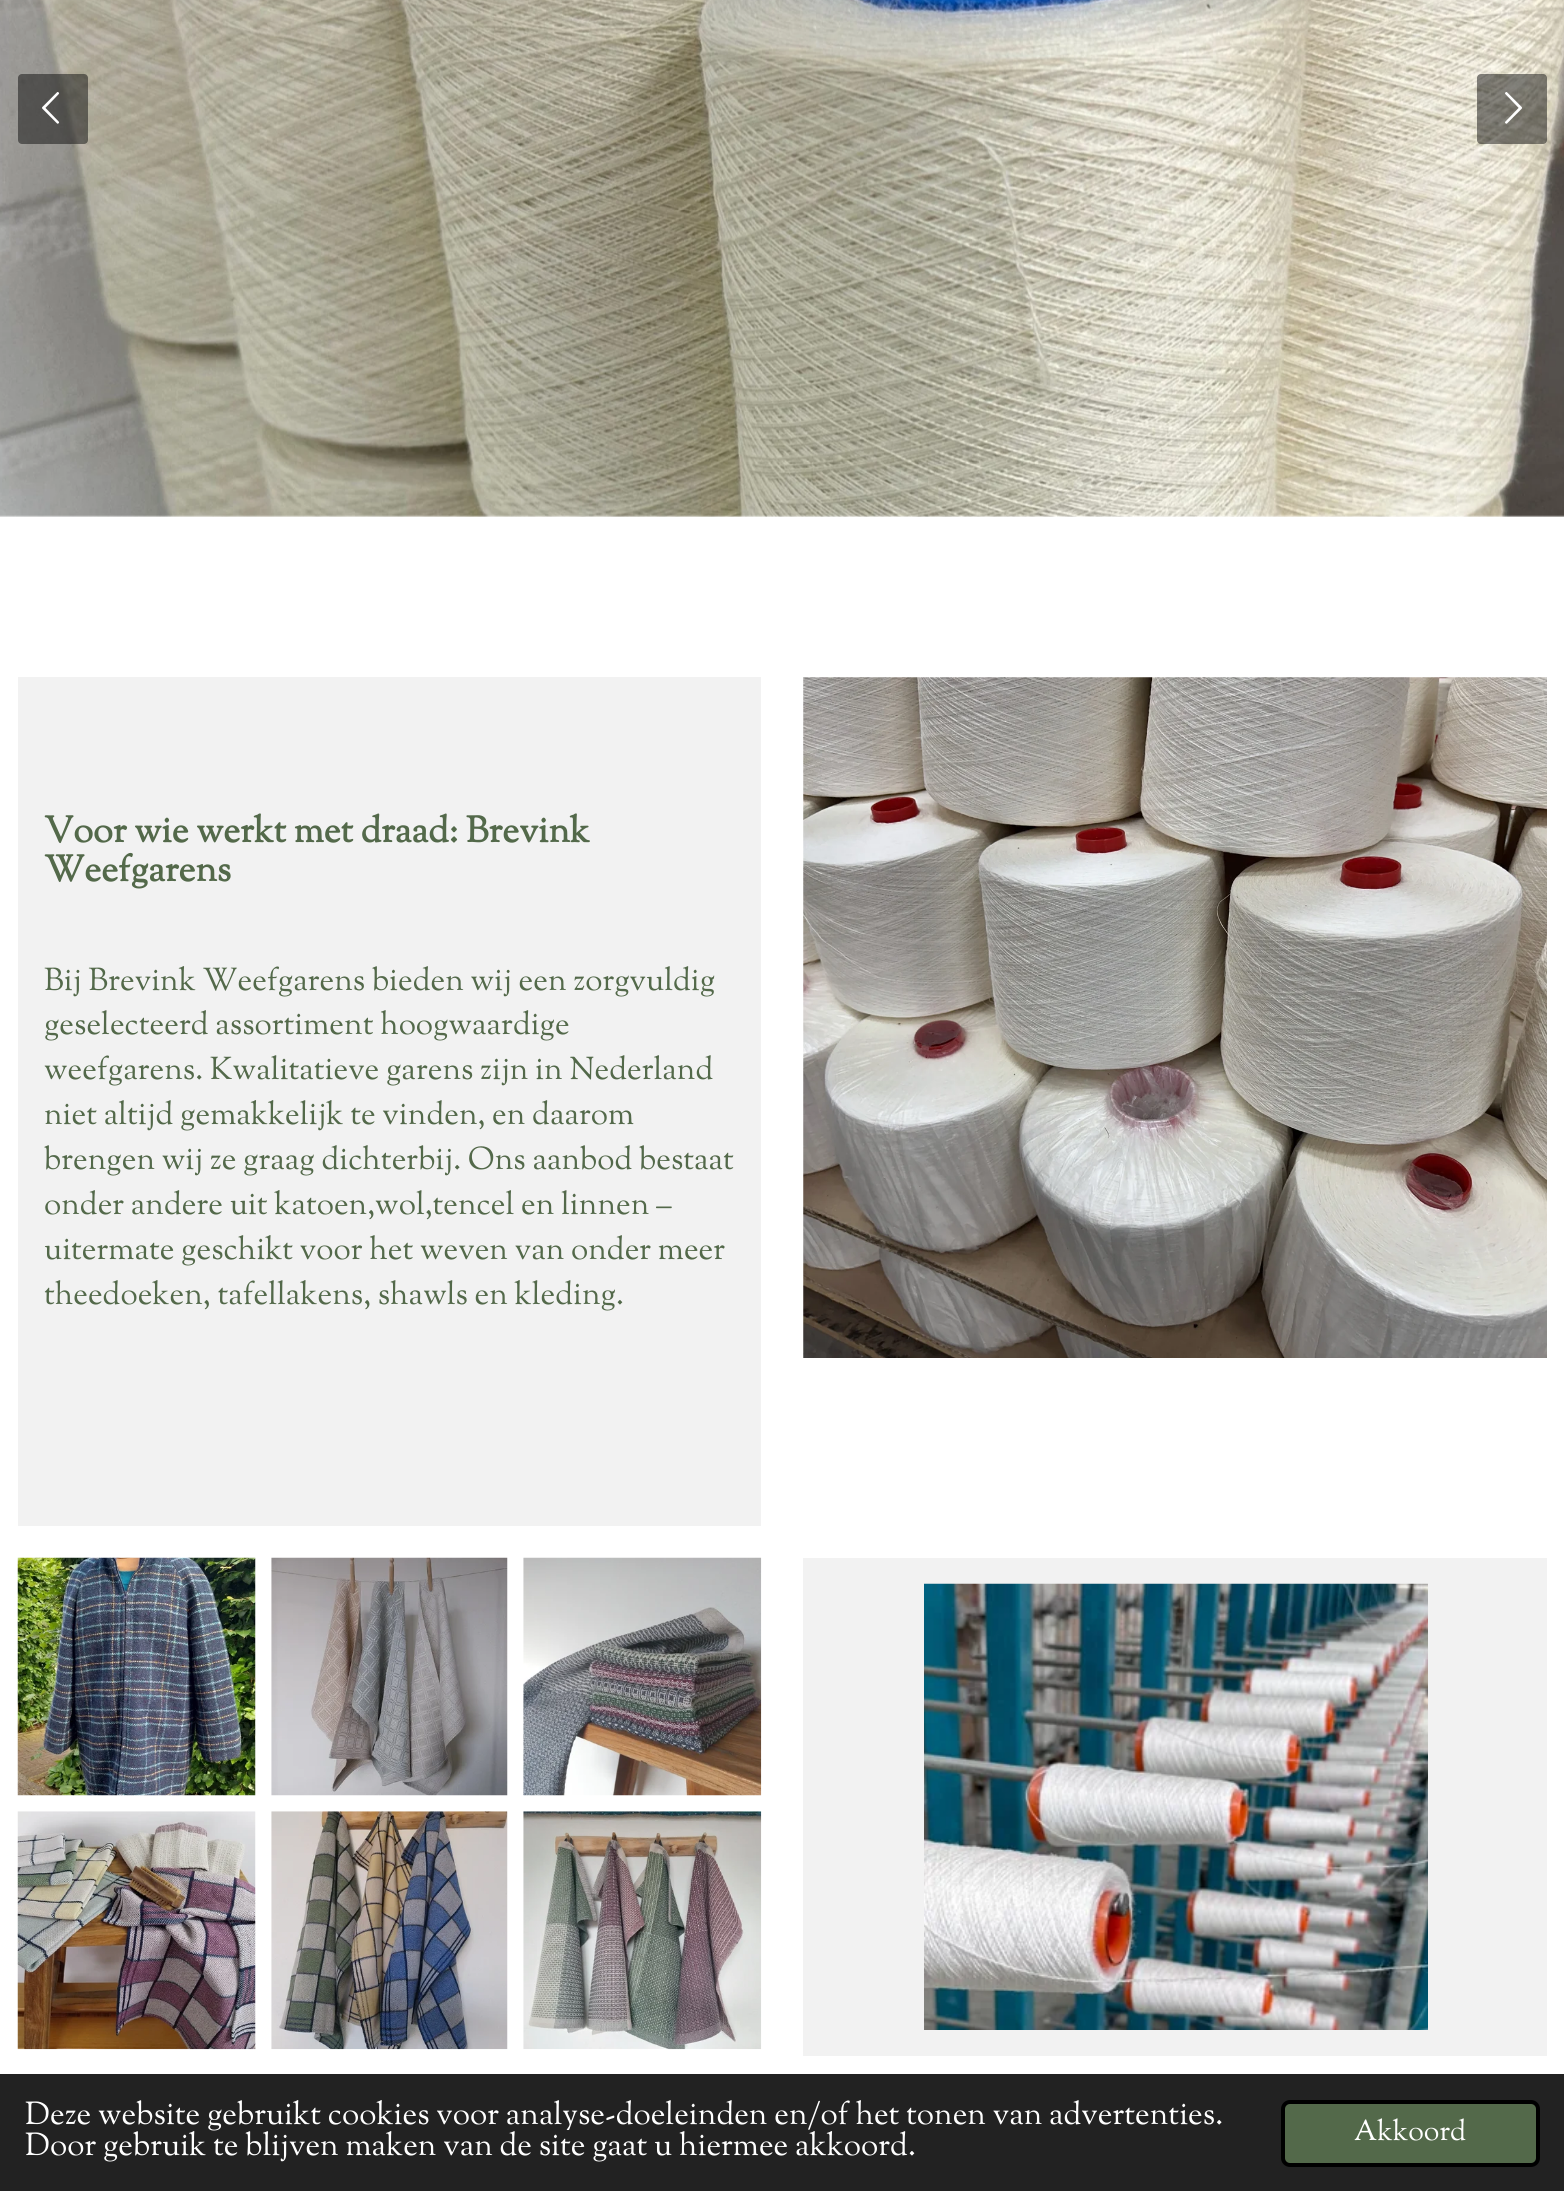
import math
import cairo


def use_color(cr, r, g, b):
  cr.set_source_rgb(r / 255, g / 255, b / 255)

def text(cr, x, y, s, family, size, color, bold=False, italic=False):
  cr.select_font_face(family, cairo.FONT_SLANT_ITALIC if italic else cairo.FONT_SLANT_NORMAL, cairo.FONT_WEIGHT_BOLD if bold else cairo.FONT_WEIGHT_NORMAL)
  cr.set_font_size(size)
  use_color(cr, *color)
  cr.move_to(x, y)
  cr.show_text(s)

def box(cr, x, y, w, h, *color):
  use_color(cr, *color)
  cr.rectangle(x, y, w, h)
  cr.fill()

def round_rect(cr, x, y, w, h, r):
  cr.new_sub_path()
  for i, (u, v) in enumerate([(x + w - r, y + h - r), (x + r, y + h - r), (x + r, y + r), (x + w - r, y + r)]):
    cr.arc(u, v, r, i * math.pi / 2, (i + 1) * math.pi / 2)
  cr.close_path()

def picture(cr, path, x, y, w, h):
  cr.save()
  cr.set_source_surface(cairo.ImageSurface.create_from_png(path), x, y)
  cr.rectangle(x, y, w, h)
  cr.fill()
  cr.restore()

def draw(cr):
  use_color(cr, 255, 255, 255)
  cr.paint()
  picture(cr, "img_01.png", 0, 0, 1564, 517)
  cr.set_source_rgba(0.059, 0.059, 0.059, 0.5)
  round_rect(cr, 18, 74, 70, 70, 4)
  cr.fill()
  picture(cr, "img_02.png", 42, 92, 18, 32)
  round_rect(cr, 1477, 74, 70, 70, 4)
  cr.fill()
  picture(cr, "img_03.png", 1505, 92, 17, 32)
  box(cr, 18, 677, 743, 849, 242, 242, 242)
  picture(cr, "img_04.png", 803, 677, 744, 681)
  picture(cr, "img_05.png", 17, 1557, 239, 239)
  picture(cr, "img_06.png", 271, 1557, 237, 239)
  picture(cr, "img_07.png", 523, 1557, 239, 239)
  picture(cr, "img_08.png", 17, 1811, 239, 239)
  picture(cr, "img_09.png", 271, 1811, 237, 239)
  picture(cr, "img_10.png", 523, 1811, 239, 239)
  box(cr, 803, 1558, 744, 498, 242, 242, 242)
  picture(cr, "img_11.png", 924, 1583, 504, 447)
  box(cr, 0, 2074, 1564, 117, 34, 34, 34)
  use_color(cr, 83, 105, 74)
  round_rect(cr, 1283, 2102, 255, 63, 7)
  cr.fill_preserve()
  use_color(cr, 0, 0, 0)
  cr.set_line_width(4)
  cr.stroke()
  text(cr, 44, 842, "Voor wie werkt met draad: Brevink", "Sorts Mill Goudy", 36.25, (83, 105, 74), bold=True)
  text(cr, 44, 881, "Weefgarens", "Sorts Mill Goudy", 36.25, (83, 105, 74), bold=True)
  text(cr, 44, 990, "Bij Brevink Weefgarens bieden wij een zorgvuldig", "Sorts Mill Goudy", 31.5, (83, 105, 74))
  text(cr, 44, 1034, "geselecteerd assortiment hoogwaardige", "Sorts Mill Goudy", 31.5, (83, 105, 74))
  text(cr, 44, 1079, "weefgarens. Kwalitatieve garens zijn in Nederland", "Sorts Mill Goudy", 31.5, (83, 105, 74))
  text(cr, 44, 1124, "niet altijd gemakkelijk te vinden, en daarom", "Sorts Mill Goudy", 31.5, (83, 105, 74))
  text(cr, 44, 1169, "brengen wij ze graag dichterbij. Ons aanbod bestaat", "Sorts Mill Goudy", 31.5, (83, 105, 74))
  text(cr, 44, 1214, "onder andere uit katoen,wol,tencel en linnen –", "Sorts Mill Goudy", 31.5, (83, 105, 74))
  text(cr, 44, 1259, "uitermate geschikt voor het weven van onder meer", "Sorts Mill Goudy", 31.5, (83, 105, 74))
  text(cr, 44, 1304, "theedoeken, tafellakens, shawls en kleding.", "Sorts Mill Goudy", 31.5, (83, 105, 74))
  text(cr, 25, 2124, "Deze website gebruikt cookies voor analyse-doeleinden en/of het tonen van advertenties.", "Sorts Mill Goudy", 31.5, (255, 255, 255))
  text(cr, 25, 2155, "Door gebruik te blijven maken van de site gaat u hiermee akkoord.", "Sorts Mill Goudy", 31.5, (255, 255, 255))
  text(cr, 1354, 2140, "Akkoord", "Sorts Mill Goudy", 28.5, (255, 255, 255))


surface = cairo.ImageSurface(cairo.FORMAT_RGB24, 1564, 2191)
cr = cairo.Context(surface)
options = cairo.FontOptions()
options.set_hint_metrics(cairo.HINT_METRICS_OFF)
options.set_hint_style(cairo.HINT_STYLE_NONE)
cr.set_font_options(options)
cr.set_miter_limit(4)
draw(cr)
surface.write_to_png("out.png")
